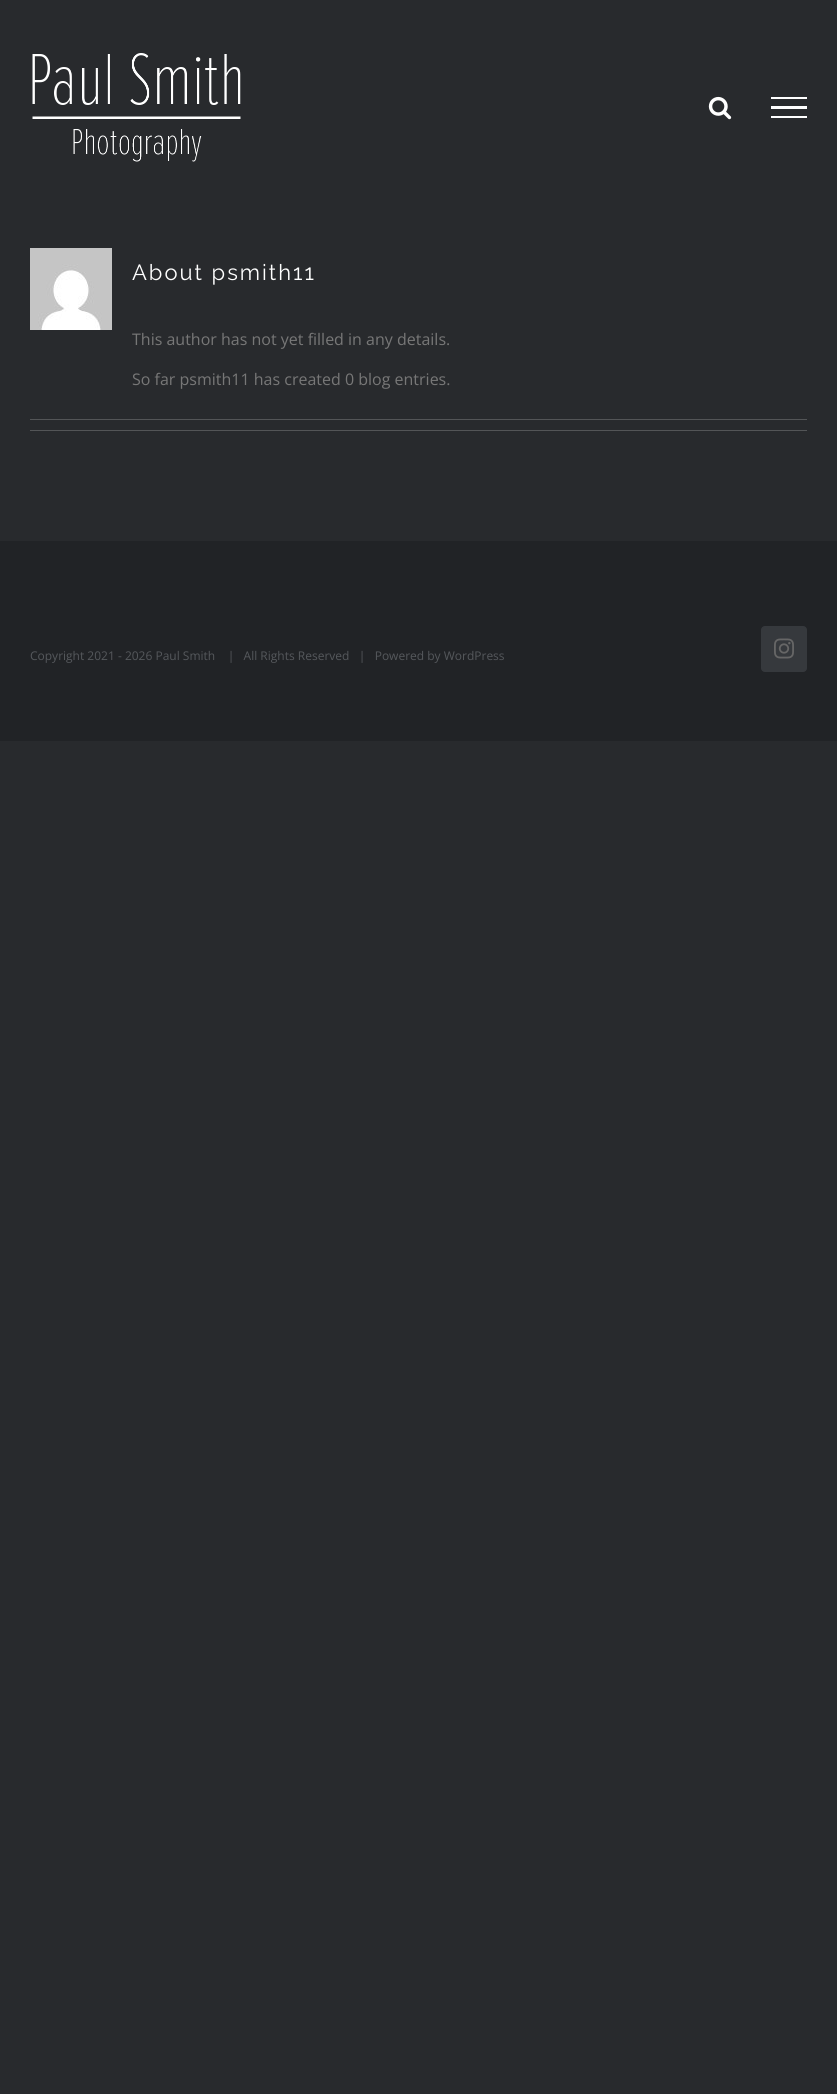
import math
import cairo


def use_color(cr, r, g, b):
  cr.set_source_rgb(r / 255, g / 255, b / 255)

def text(cr, x, y, s, family, size, color, bold=False, italic=False):
  cr.select_font_face(family, cairo.FONT_SLANT_ITALIC if italic else cairo.FONT_SLANT_NORMAL, cairo.FONT_WEIGHT_BOLD if bold else cairo.FONT_WEIGHT_NORMAL)
  cr.set_font_size(size)
  use_color(cr, *color)
  cr.move_to(x, y)
  cr.show_text(s)

def spaced_text(cr, x, y, s, letter, word):
  cr.move_to(x, y)
  for ch in s:
    cr.show_text(ch)
    cr.rel_move_to(letter + word * (ch == ' '), 0)

def box(cr, x, y, w, h, *color):
  use_color(cr, *color)
  cr.rectangle(x, y, w, h)
  cr.fill()

def round_rect(cr, x, y, w, h, r):
  cr.new_sub_path()
  for i, (u, v) in enumerate([(x + w - r, y + h - r), (x + r, y + h - r), (x + r, y + r), (x + w - r, y + r)]):
    cr.arc(u, v, r, i * math.pi / 2, (i + 1) * math.pi / 2)
  cr.close_path()

def picture(cr, path, x, y, w, h):
  cr.save()
  cr.set_source_surface(cairo.ImageSurface.create_from_png(path), x, y)
  cr.rectangle(x, y, w, h)
  cr.fill()
  cr.restore()

def draw(cr):
  use_color(cr, 40, 42, 45)
  cr.paint()
  picture(cr, "img_01.png", 32, 53, 209, 109)
  picture(cr, "img_02.png", 708, 96, 24, 24)
  box(cr, 771, 97, 36, 2, 255, 255, 255)
  box(cr, 771, 106, 36, 3, 255, 255, 255)
  box(cr, 771, 116, 36, 2, 255, 255, 255)
  picture(cr, "img_03.png", 30, 248, 82, 82)
  box(cr, 30, 419, 777, 1, 83, 85, 87)
  box(cr, 30, 430, 777, 1, 83, 85, 87)
  box(cr, 0, 541, 837, 200, 33, 35, 38)
  use_color(cr, 54, 57, 61)
  round_rect(cr, 761.5, 626.5, 45, 45, 3.5)
  cr.fill_preserve()
  cr.set_line_width(1)
  cr.stroke()
  picture(cr, "img_04.png", 774, 638, 20, 21)
  cr.select_font_face("Raleway Thin")
  cr.set_font_size(22)
  use_color(cr, 255, 255, 255)
  spaced_text(cr, 132, 280, "About psmith11", 2, 0)
  text(cr, 132, 345, "This author has not yet filled in any details.", "Open Sans", 16, (119, 119, 119))
  text(cr, 132, 385, "So far psmith11 has created 0 blog entries.", "Open Sans", 16, (119, 119, 119))
  text(cr, 30, 660, "Copyright 2021 - 2026 Paul Smith    |   All Rights Reserved   |   Powered by WordPress", "Open Sans", 12, (85, 88, 92))


surface = cairo.ImageSurface(cairo.FORMAT_RGB24, 837, 2094)
cr = cairo.Context(surface)
options = cairo.FontOptions()
options.set_hint_metrics(cairo.HINT_METRICS_OFF)
options.set_hint_style(cairo.HINT_STYLE_NONE)
cr.set_font_options(options)
cr.set_miter_limit(4)
draw(cr)
surface.write_to_png("out.png")
